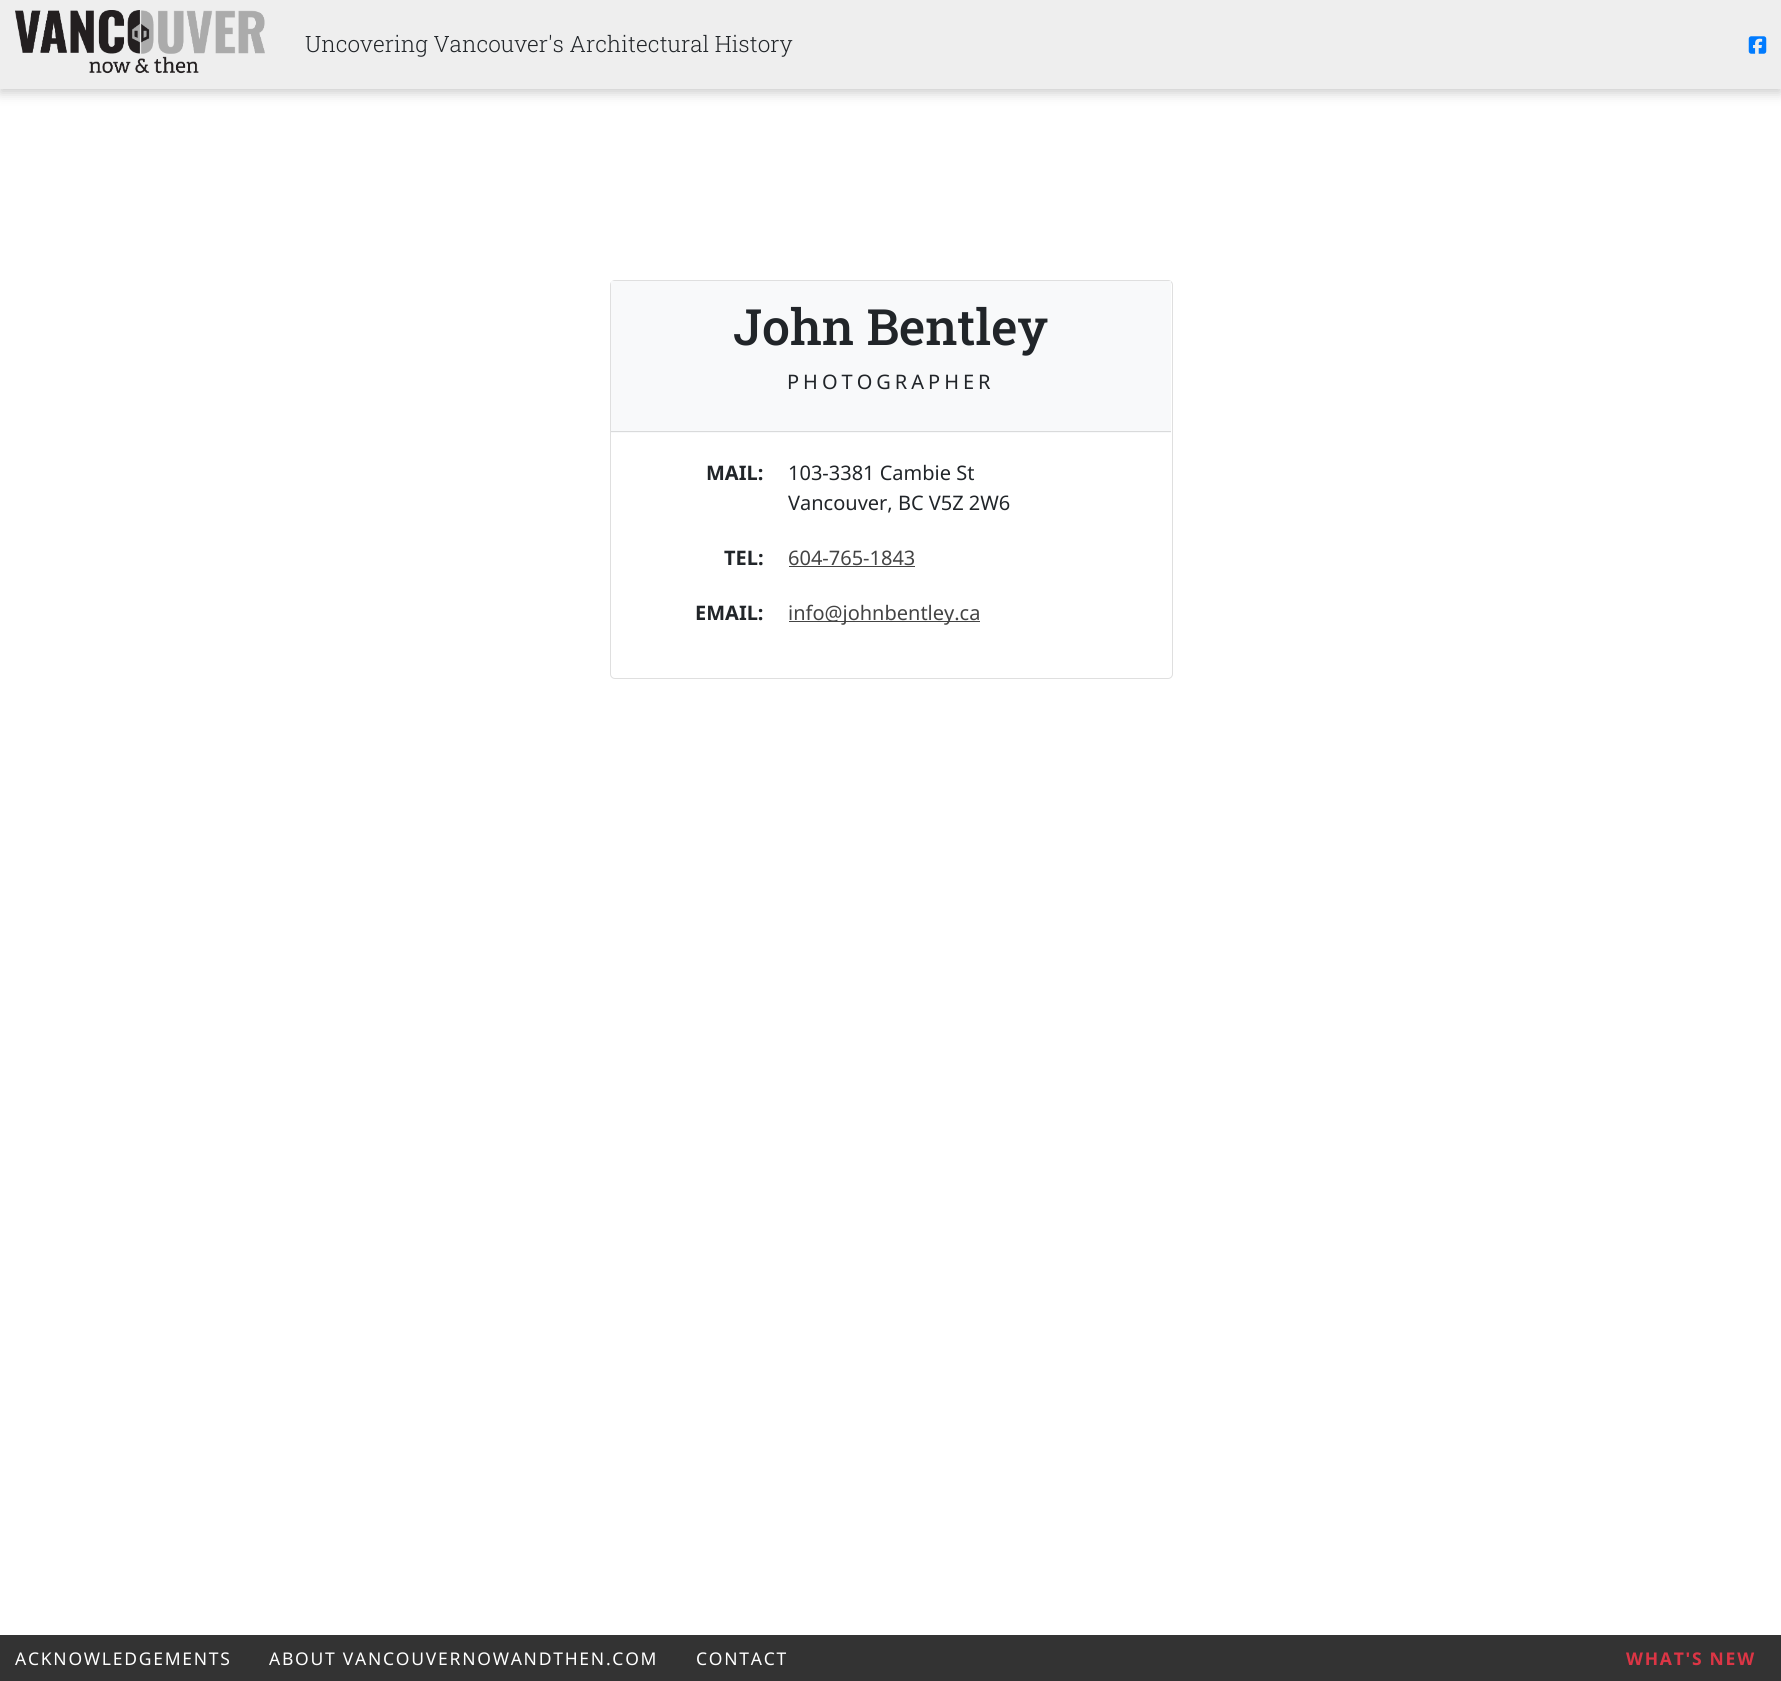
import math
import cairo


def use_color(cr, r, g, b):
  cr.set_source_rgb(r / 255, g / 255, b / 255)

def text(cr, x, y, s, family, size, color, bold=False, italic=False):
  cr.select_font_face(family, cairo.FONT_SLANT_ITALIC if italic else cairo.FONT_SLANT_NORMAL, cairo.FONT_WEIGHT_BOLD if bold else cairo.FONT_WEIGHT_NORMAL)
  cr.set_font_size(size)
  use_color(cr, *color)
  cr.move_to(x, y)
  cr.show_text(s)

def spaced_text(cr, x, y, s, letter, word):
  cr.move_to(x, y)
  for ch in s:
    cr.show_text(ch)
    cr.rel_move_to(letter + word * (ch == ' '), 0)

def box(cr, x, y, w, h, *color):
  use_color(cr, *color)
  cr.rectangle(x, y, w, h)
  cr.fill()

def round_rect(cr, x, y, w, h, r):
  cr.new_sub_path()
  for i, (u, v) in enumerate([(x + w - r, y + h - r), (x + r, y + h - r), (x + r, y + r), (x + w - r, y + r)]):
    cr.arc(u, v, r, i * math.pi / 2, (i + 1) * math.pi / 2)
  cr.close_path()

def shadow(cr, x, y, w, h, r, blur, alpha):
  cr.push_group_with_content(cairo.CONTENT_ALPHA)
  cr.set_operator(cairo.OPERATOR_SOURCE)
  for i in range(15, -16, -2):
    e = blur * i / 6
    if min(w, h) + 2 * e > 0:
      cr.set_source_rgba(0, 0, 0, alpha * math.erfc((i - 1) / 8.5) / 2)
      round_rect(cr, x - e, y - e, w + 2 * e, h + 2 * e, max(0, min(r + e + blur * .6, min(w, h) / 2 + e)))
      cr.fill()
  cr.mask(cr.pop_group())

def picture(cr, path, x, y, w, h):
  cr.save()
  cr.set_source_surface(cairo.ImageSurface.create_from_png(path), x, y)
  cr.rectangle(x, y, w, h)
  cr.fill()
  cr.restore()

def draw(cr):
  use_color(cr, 255, 255, 255)
  cr.paint()
  use_color(cr, 0, 0, 0)
  shadow(cr, 0, 4, 1781, 89, 0, 6, 0.2)
  box(cr, 0, 0, 1781, 89, 238, 238, 238)
  picture(cr, "img_01.png", 15, 10, 250, 64)
  picture(cr, "img_02.png", 1748, 36, 19, 18)
  round_rect(cr, 610.5, 280.5, 562, 398, 4.5)
  use_color(cr, 223, 223, 223)
  cr.set_line_width(1)
  cr.stroke()
  box(cr, 611, 281, 560, 152, 248, 249, 250)
  box(cr, 611, 431, 560, 1, 217, 218, 219)
  box(cr, 789, 566, 126, 1, 68, 68, 68)
  box(cr, 789, 621, 191, 1, 68, 68, 68)
  box(cr, 0, 1635, 1781, 46, 51, 51, 51)
  text(cr, 305, 52, "Uncovering Vancouver's Architectural History", "Roboto Slab Light", 22.5, (33, 37, 41))
  text(cr, 733, 345, "John Bentley", "Roboto Slab Medium", 50, (33, 37, 41))
  cr.select_font_face("Noto Sans")
  cr.set_font_size(20)
  spaced_text(cr, 787, 389, "PHOTOGRAPHER", 4, 0)
  text(cr, 706, 480, "MAIL:", "Noto Sans", 20, (33, 37, 41), bold=True)
  text(cr, 788, 480, "103-3381 Cambie St", "Noto Sans", 20, (33, 37, 41))
  text(cr, 788, 510, "Vancouver, BC V5Z 2W6", "Noto Sans", 20, (33, 37, 41))
  text(cr, 724, 565, "TEL:", "Noto Sans", 20, (33, 37, 41), bold=True)
  text(cr, 788, 565, "604-765-1843", "Noto Sans", 20, (68, 68, 68))
  text(cr, 695, 620, "EMAIL:", "Noto Sans", 20, (33, 37, 41), bold=True)
  text(cr, 788, 620, "info@johnbentley.ca", "Noto Sans", 20, (68, 68, 68))
  cr.set_font_size(17.5)
  use_color(cr, 255, 255, 255)
  spaced_text(cr, 15, 1665, "ACKNOWLEDGEMENTS", 1.75, 0)
  spaced_text(cr, 269, 1665, "ABOUT VANCOUVERNOWANDTHEN.COM", 1.75, 0)
  spaced_text(cr, 696, 1665, "CONTACT", 1.75, 0)
  cr.select_font_face("Noto Sans", cairo.FONT_SLANT_NORMAL, cairo.FONT_WEIGHT_BOLD)
  use_color(cr, 220, 53, 69)
  spaced_text(cr, 1626, 1665, "WHAT'S NEW", 1.75, 0)


surface = cairo.ImageSurface(cairo.FORMAT_RGB24, 1781, 1681)
cr = cairo.Context(surface)
options = cairo.FontOptions()
options.set_hint_metrics(cairo.HINT_METRICS_OFF)
options.set_hint_style(cairo.HINT_STYLE_NONE)
cr.set_font_options(options)
cr.set_miter_limit(4)
draw(cr)
surface.write_to_png("out.png")
